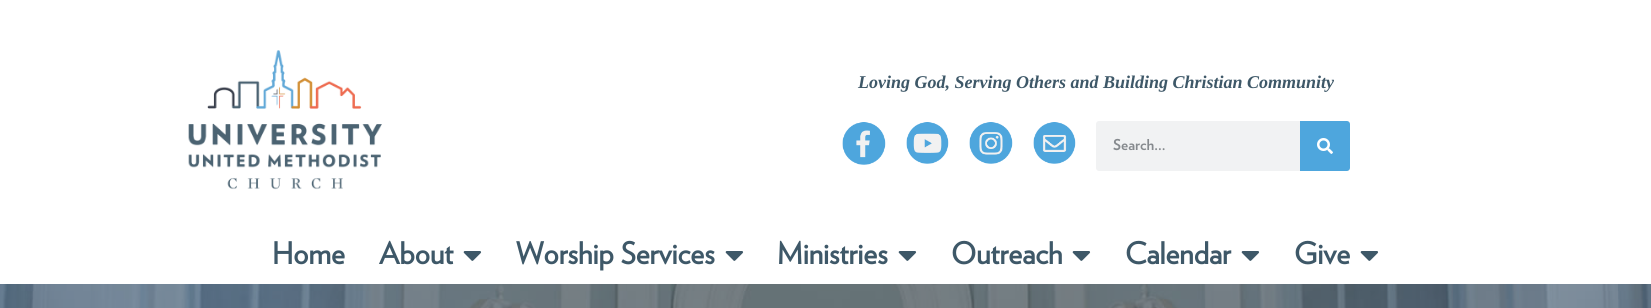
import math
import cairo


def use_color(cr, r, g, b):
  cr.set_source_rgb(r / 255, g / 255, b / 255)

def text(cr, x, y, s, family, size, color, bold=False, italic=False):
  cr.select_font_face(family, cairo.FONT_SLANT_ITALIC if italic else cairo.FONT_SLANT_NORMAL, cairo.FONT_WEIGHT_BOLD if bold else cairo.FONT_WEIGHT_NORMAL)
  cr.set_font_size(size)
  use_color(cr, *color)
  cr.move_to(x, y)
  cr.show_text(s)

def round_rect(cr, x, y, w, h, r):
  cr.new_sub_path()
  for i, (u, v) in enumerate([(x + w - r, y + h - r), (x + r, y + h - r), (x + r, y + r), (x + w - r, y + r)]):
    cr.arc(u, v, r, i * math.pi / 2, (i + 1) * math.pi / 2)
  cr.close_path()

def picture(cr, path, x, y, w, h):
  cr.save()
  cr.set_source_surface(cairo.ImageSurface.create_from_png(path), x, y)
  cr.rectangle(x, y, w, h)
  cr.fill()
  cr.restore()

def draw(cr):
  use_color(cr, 255, 255, 255)
  cr.paint()
  picture(cr, "img_01.png", 188, 50, 194, 140)
  picture(cr, "img_02.png", 842, 122, 44, 43)
  picture(cr, "img_03.png", 906, 122, 43, 42)
  picture(cr, "img_04.png", 969, 122, 44, 42)
  picture(cr, "img_05.png", 1033, 122, 43, 42)
  use_color(cr, 241, 242, 243)
  round_rect(cr, 1096, 121, 254, 50, 3)
  cr.fill()
  use_color(cr, 78, 166, 221)
  cr.new_path()
  cr.move_to(1300, 121)
  cr.line_to(1347, 121)
  cr.curve_to(1348.5, 121, 1350, 122.5, 1350, 124)
  cr.line_to(1350, 168)
  cr.curve_to(1350, 169.5, 1348.5, 171, 1347, 171)
  cr.line_to(1300, 171)
  cr.close_path()
  cr.fill()
  picture(cr, "img_06.png", 1317, 138, 16, 16)
  picture(cr, "img_07.png", 463, 251, 19, 10)
  picture(cr, "img_07.png", 725, 251, 19, 10)
  picture(cr, "img_07.png", 898, 251, 19, 10)
  picture(cr, "img_07.png", 1072, 251, 19, 10)
  picture(cr, "img_07.png", 1241, 251, 19, 10)
  picture(cr, "img_07.png", 1360, 251, 19, 10)
  picture(cr, "img_08.png", 0, 284, 1651, 24)
  text(cr, 858, 88, "Loving God, Serving Others and Building Christian Community", "Liberation Serif", 18, (62, 88, 104), bold=True, italic=True)
  text(cr, 1113, 150, "Search...", "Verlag", 15, (134, 138, 142), bold=True)
  text(cr, 272, 264, "Home", "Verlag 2", 30, (62, 88, 104), bold=True)
  text(cr, 379, 264, "About", "Verlag 2", 30, (62, 88, 104), bold=True)
  text(cr, 516, 264, "Worship Services", "Verlag 2", 30, (62, 88, 104), bold=True)
  text(cr, 777, 264, "Ministries", "Verlag 2", 30, (62, 88, 104), bold=True)
  text(cr, 951, 264, "Outreach", "Verlag 2", 30, (62, 88, 104), bold=True)
  text(cr, 1125, 264, "Calendar", "Verlag 2", 30, (62, 88, 104), bold=True)
  text(cr, 1294, 264, "Give", "Verlag 2", 30, (62, 88, 104), bold=True)


surface = cairo.ImageSurface(cairo.FORMAT_RGB24, 1651, 308)
cr = cairo.Context(surface)
options = cairo.FontOptions()
options.set_hint_metrics(cairo.HINT_METRICS_OFF)
options.set_hint_style(cairo.HINT_STYLE_NONE)
cr.set_font_options(options)
cr.set_miter_limit(4)
draw(cr)
surface.write_to_png("out.png")
